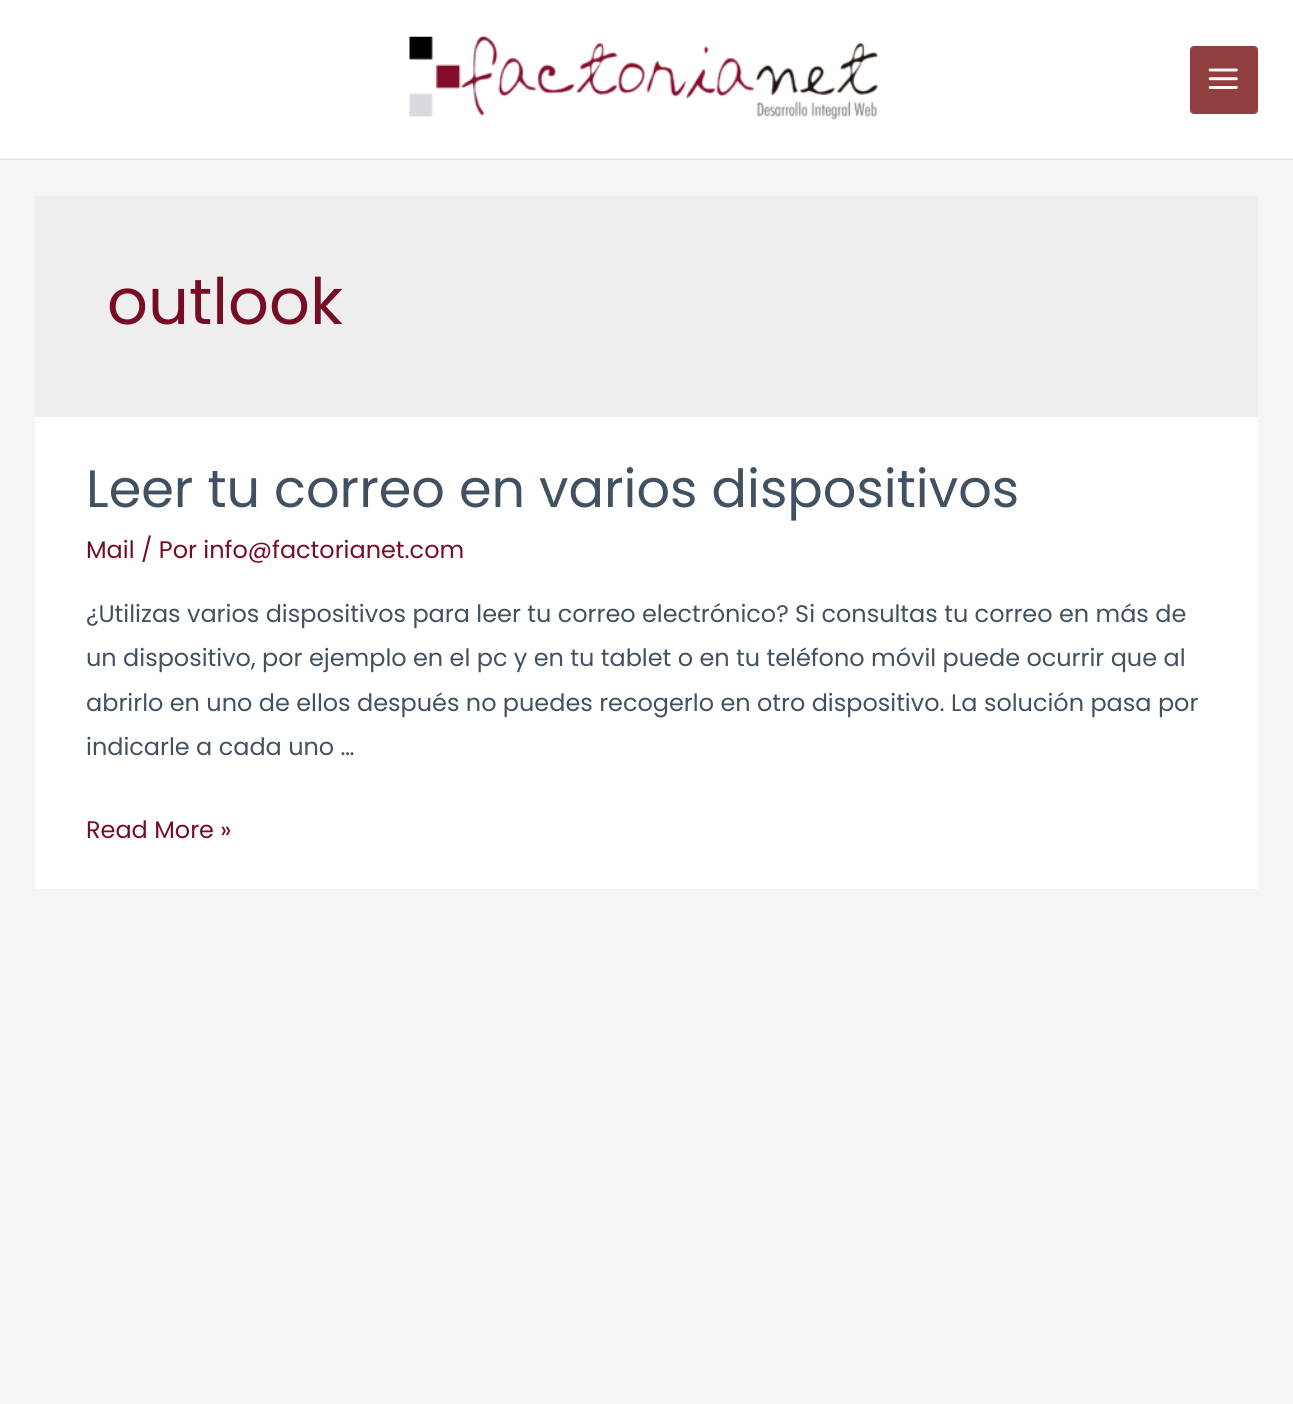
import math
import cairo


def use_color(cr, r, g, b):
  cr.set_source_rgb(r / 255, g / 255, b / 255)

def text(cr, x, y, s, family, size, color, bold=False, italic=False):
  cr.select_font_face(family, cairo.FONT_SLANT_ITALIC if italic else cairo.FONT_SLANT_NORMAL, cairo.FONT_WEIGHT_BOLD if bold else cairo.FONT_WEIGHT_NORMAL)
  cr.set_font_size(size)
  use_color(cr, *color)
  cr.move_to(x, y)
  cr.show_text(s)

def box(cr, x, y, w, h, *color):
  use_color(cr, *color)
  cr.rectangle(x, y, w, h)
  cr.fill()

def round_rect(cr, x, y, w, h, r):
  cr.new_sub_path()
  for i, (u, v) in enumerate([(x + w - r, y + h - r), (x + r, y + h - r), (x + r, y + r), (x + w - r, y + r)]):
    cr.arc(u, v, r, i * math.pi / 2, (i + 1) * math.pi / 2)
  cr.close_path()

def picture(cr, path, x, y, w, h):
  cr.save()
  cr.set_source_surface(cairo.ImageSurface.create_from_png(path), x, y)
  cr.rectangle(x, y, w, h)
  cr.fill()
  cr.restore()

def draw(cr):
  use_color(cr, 244, 245, 246)
  cr.paint()
  box(cr, 0, 159, 1293, 1, 227, 228, 229)
  box(cr, 0, 0, 1293, 158, 255, 255, 255)
  box(cr, 0, 158, 1293, 1, 237, 237, 237)
  picture(cr, "img_01.png", 409, 36, 469, 84)
  use_color(cr, 145, 62, 62)
  round_rect(cr, 1190, 46, 68, 68, 4)
  cr.fill()
  picture(cr, "img_02.png", 1208, 68, 30, 21)
  box(cr, 35, 196, 1223, 221, 238, 238, 238)
  box(cr, 35, 417, 1223, 472, 255, 255, 255)
  text(cr, 107, 324, "outlook", "Poppins", 64, (118, 13, 37))
  text(cr, 86, 507, "Leer tu correo en varios dispositivos", "Poppins", 52.5, (65, 81, 97))
  text(cr, 86, 558, "Mail / Por info@factorianet.com", "Poppins", 23.95, (118, 13, 37))
  text(cr, 86, 622, "¿Utilizas varios dispositivos para leer tu correo electrónico? Si consultas tu correo en más de", "Poppins", 23.95, (65, 81, 97))
  text(cr, 86, 666, "un dispositivo, por ejemplo en el pc y en tu tablet o en tu teléfono móvil puede ocurrir que al", "Poppins", 23.95, (65, 81, 97))
  text(cr, 86, 711, "abrirlo en uno de ellos después no puedes recogerlo en otro dispositivo. La solución pasa por", "Poppins", 23.95, (65, 81, 97))
  text(cr, 86, 755, "indicarle a cada uno …", "Poppins", 23.95, (65, 81, 97))
  text(cr, 86, 838, "Read More »", "Poppins", 23.95, (118, 13, 37))


surface = cairo.ImageSurface(cairo.FORMAT_RGB24, 1293, 1404)
cr = cairo.Context(surface)
options = cairo.FontOptions()
options.set_hint_metrics(cairo.HINT_METRICS_OFF)
options.set_hint_style(cairo.HINT_STYLE_NONE)
cr.set_font_options(options)
cr.set_miter_limit(4)
draw(cr)
surface.write_to_png("out.png")
